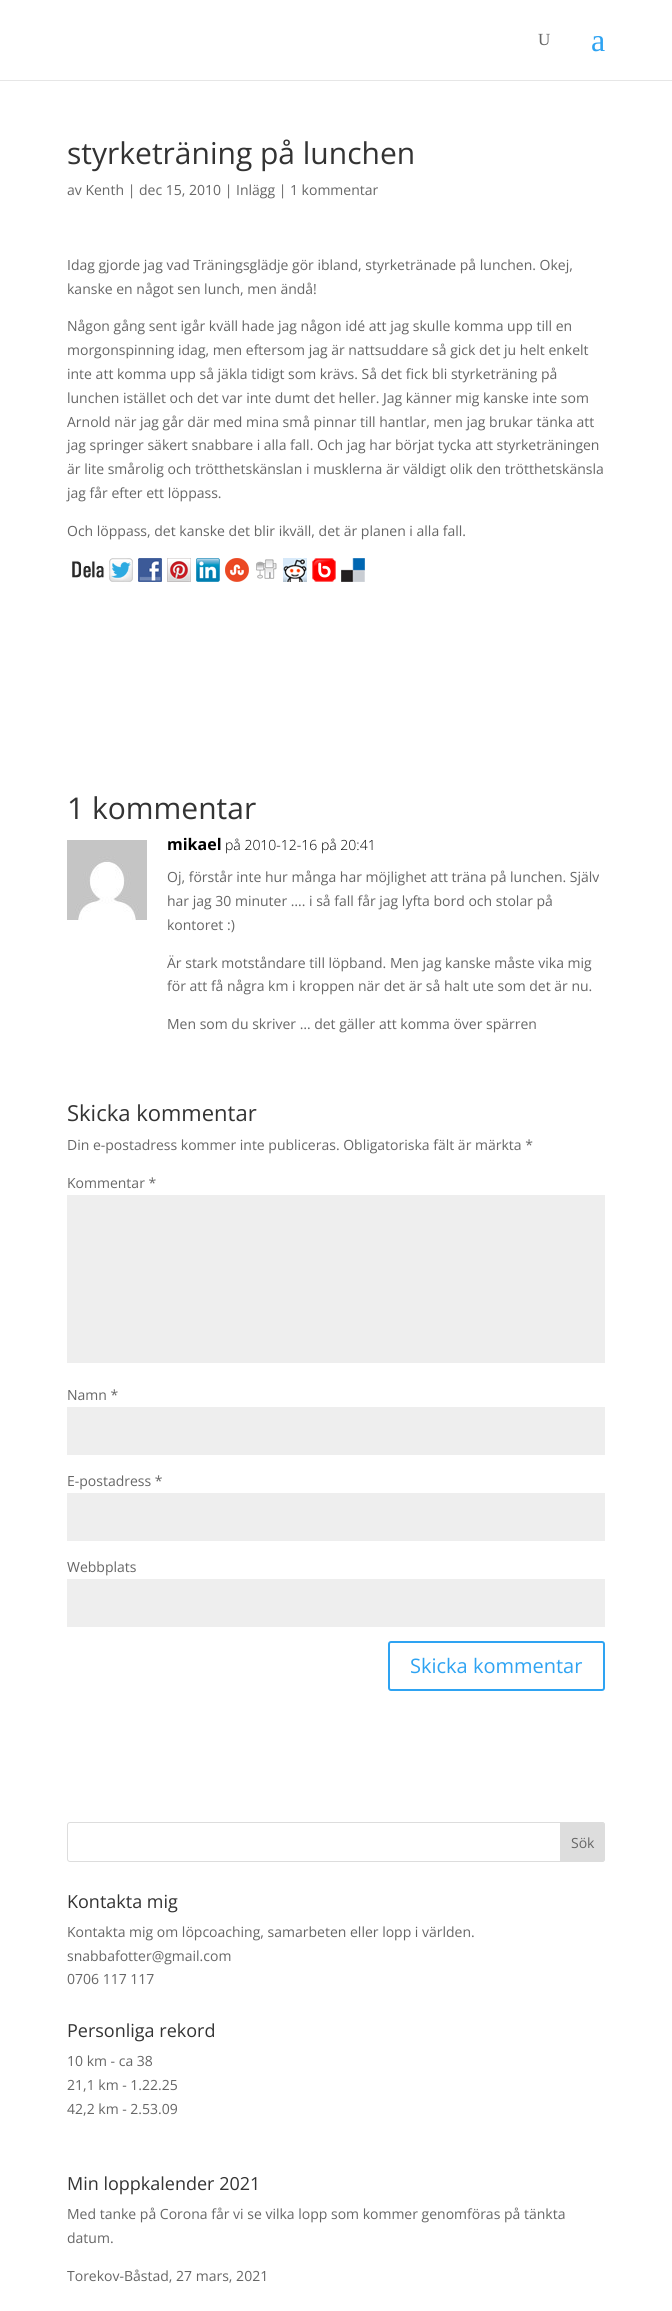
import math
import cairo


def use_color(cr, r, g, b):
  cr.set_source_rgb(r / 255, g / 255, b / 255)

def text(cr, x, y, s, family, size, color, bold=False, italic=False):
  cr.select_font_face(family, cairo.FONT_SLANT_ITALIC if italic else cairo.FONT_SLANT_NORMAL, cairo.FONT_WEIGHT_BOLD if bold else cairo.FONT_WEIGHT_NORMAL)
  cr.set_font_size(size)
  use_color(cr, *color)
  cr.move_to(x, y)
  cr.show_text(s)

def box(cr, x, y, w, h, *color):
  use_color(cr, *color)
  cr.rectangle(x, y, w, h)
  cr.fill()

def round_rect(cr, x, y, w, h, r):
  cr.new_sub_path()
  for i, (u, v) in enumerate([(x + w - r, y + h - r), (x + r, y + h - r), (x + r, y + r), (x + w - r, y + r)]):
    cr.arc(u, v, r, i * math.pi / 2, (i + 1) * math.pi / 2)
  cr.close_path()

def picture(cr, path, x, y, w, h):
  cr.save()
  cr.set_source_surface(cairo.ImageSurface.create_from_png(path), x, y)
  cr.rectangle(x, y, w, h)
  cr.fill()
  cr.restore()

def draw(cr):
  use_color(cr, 255, 255, 255)
  cr.paint()
  box(cr, 0, 80, 672, 1, 230, 230, 230)
  picture(cr, "img_01.png", 72, 560, 33, 18)
  picture(cr, "img_02.png", 109, 558, 24, 24)
  picture(cr, "img_03.png", 138, 558, 24, 24)
  picture(cr, "img_04.png", 167, 558, 24, 24)
  picture(cr, "img_05.png", 196, 558, 24, 24)
  picture(cr, "img_06.png", 225, 558, 24, 24)
  picture(cr, "img_07.png", 256, 559, 21, 20)
  picture(cr, "img_08.png", 283, 558, 24, 24)
  picture(cr, "img_09.png", 312, 558, 24, 24)
  picture(cr, "img_10.png", 341, 558, 24, 24)
  picture(cr, "img_11.png", 67, 840, 80, 80)
  box(cr, 67, 1195, 538, 168, 238, 238, 238)
  box(cr, 67, 1407, 538, 48, 238, 238, 238)
  box(cr, 67, 1493, 538, 48, 238, 238, 238)
  box(cr, 67, 1579, 538, 48, 238, 238, 238)
  round_rect(cr, 389, 1642, 215, 48, 2)
  use_color(cr, 46, 163, 242)
  cr.stroke()
  round_rect(cr, 67.5, 1822.5, 537, 39, 2.5)
  use_color(cr, 221, 221, 221)
  cr.set_line_width(1)
  cr.stroke()
  cr.new_path()
  cr.move_to(560.5, 1822.5)
  cr.line_to(602, 1822.5)
  cr.curve_to(603.5, 1822.5, 604.5, 1823.5, 604.5, 1825)
  cr.line_to(604.5, 1859)
  cr.curve_to(604.5, 1860.5, 603.5, 1861.5, 602, 1861.5)
  cr.line_to(560.5, 1861.5)
  cr.close_path()
  cr.fill_preserve()
  cr.stroke()
  text(cr, 538, 45, "U", "Liberation Serif", 17, (102, 102, 102))
  text(cr, 591, 51, "a", "Liberation Serif", 32, (46, 163, 242))
  text(cr, 67, 164, "styrketräning på lunchen", "Open Sans", 30, (51, 51, 51))
  text(cr, 67, 195, "av Kenth | dec 15, 2010 | Inlägg | 1 kommentar", "Open Sans", 14, (102, 102, 102))
  text(cr, 67, 270, "Idag gjorde jag vad Träningsglädje gör ibland, styrketränade på lunchen. Okej,", "Open Sans", 14, (102, 102, 102))
  text(cr, 67, 294, "kanske en något sen lunch, men ändå!", "Open Sans", 14, (102, 102, 102))
  text(cr, 67, 331, "Någon gång sent igår kväll hade jag någon idé att jag skulle komma upp till en", "Open Sans", 14, (102, 102, 102))
  text(cr, 67, 355, "morgonspinning idag, men eftersom jag är nattsuddare så gick det ju helt enkelt", "Open Sans", 14, (102, 102, 102))
  text(cr, 67, 379, "inte att komma upp så jäkla tidigt som krävs. Så det fick bli styrketräning på", "Open Sans", 14, (102, 102, 102))
  text(cr, 67, 403, "lunchen istället och det var inte dumt det heller. Jag känner mig kanske inte som", "Open Sans", 14, (102, 102, 102))
  text(cr, 67, 427, "Arnold när jag går där med mina små pinnar till hantlar, men jag brukar tänka att", "Open Sans", 14, (102, 102, 102))
  text(cr, 67, 450, "jag springer säkert snabbare i alla fall. Och jag har börjat tycka att styrketräningen", "Open Sans", 14, (102, 102, 102))
  text(cr, 67, 474, "är lite smårolig och trötthetskänslan i musklerna är väldigt olik den trötthetskänsla", "Open Sans", 14, (102, 102, 102))
  text(cr, 67, 498, "jag får efter ett löppass.", "Open Sans", 14, (102, 102, 102))
  text(cr, 67, 536, "Och löppass, det kanske det blir ikväll, det är planen i alla fall.", "Open Sans", 14, (102, 102, 102))
  text(cr, 67, 819, "1 kommentar", "Open Sans", 30, (51, 51, 51))
  text(cr, 167, 850, "mikael", "Open Sans", 16, (0, 0, 0), bold=True)
  text(cr, 225, 850, "på 2010-12-16 på 20:41", "Open Sans Light", 14, (0, 0, 0))
  text(cr, 167, 882, "Oj, förstår inte hur många har möjlighet att träna på lunchen. Själv", "Open Sans", 14, (102, 102, 102))
  text(cr, 167, 906, "har jag 30 minuter …. i så fall får jag lyfta bord och stolar på", "Open Sans", 14, (102, 102, 102))
  text(cr, 167, 930, "kontoret :)", "Open Sans", 14, (102, 102, 102))
  text(cr, 167, 968, "Är stark motståndare till löpband. Men jag kanske måste vika mig", "Open Sans", 14, (102, 102, 102))
  text(cr, 167, 991, "för att få några km i kroppen när det är så halt ute som det är nu.", "Open Sans", 14, (102, 102, 102))
  text(cr, 167, 1029, "Men som du skriver … det gäller att komma över spärren", "Open Sans", 14, (102, 102, 102))
  text(cr, 67, 1121, "Skicka kommentar", "Open Sans", 22, (51, 51, 51))
  text(cr, 67, 1150, "Din e-postadress kommer inte publiceras. Obligatoriska fält är märkta *", "Open Sans", 14, (102, 102, 102))
  text(cr, 67, 1188, "Kommentar *", "Open Sans", 14, (102, 102, 102))
  text(cr, 67, 1400, "Namn *", "Open Sans", 14, (102, 102, 102))
  text(cr, 67, 1486, "E-postadress *", "Open Sans", 14, (102, 102, 102))
  text(cr, 67, 1572, "Webbplats", "Open Sans", 14, (102, 102, 102))
  text(cr, 410, 1673, "Skicka kommentar", "Open Sans", 20, (46, 163, 242))
  text(cr, 571, 1848, "Sök", "Open Sans", 14, (102, 102, 102))
  text(cr, 67, 1908, "Kontakta mig", "Open Sans", 18, (51, 51, 51))
  text(cr, 67, 1937, "Kontakta mig om löpcoaching, samarbeten eller lopp i världen.", "Open Sans", 14, (102, 102, 102))
  text(cr, 67, 1961, "snabbafotter@gmail.com", "Open Sans", 14, (102, 102, 102))
  text(cr, 67, 1984, "0706 117 117", "Open Sans", 14, (102, 102, 102))
  text(cr, 67, 2037, "Personliga rekord", "Open Sans", 18, (51, 51, 51))
  text(cr, 67, 2066, "10 km - ca 38", "Open Sans", 14, (102, 102, 102))
  text(cr, 67, 2090, "21,1 km - 1.22.25", "Open Sans", 14, (102, 102, 102))
  text(cr, 67, 2114, "42,2 km - 2.53.09", "Open Sans", 14, (102, 102, 102))
  text(cr, 67, 2190, "Min loppkalender 2021", "Open Sans", 18, (51, 51, 51))
  text(cr, 67, 2219, "Med tanke på Corona får vi se vilka lopp som kommer genomföras på tänkta", "Open Sans", 14, (102, 102, 102))
  text(cr, 67, 2243, "datum.", "Open Sans", 14, (102, 102, 102))
  text(cr, 67, 2281, "Torekov-Båstad, 27 mars, 2021", "Open Sans", 14, (102, 102, 102))


surface = cairo.ImageSurface(cairo.FORMAT_RGB24, 672, 2311)
cr = cairo.Context(surface)
options = cairo.FontOptions()
options.set_hint_metrics(cairo.HINT_METRICS_OFF)
options.set_hint_style(cairo.HINT_STYLE_NONE)
cr.set_font_options(options)
cr.set_miter_limit(4)
draw(cr)
surface.write_to_png("out.png")
